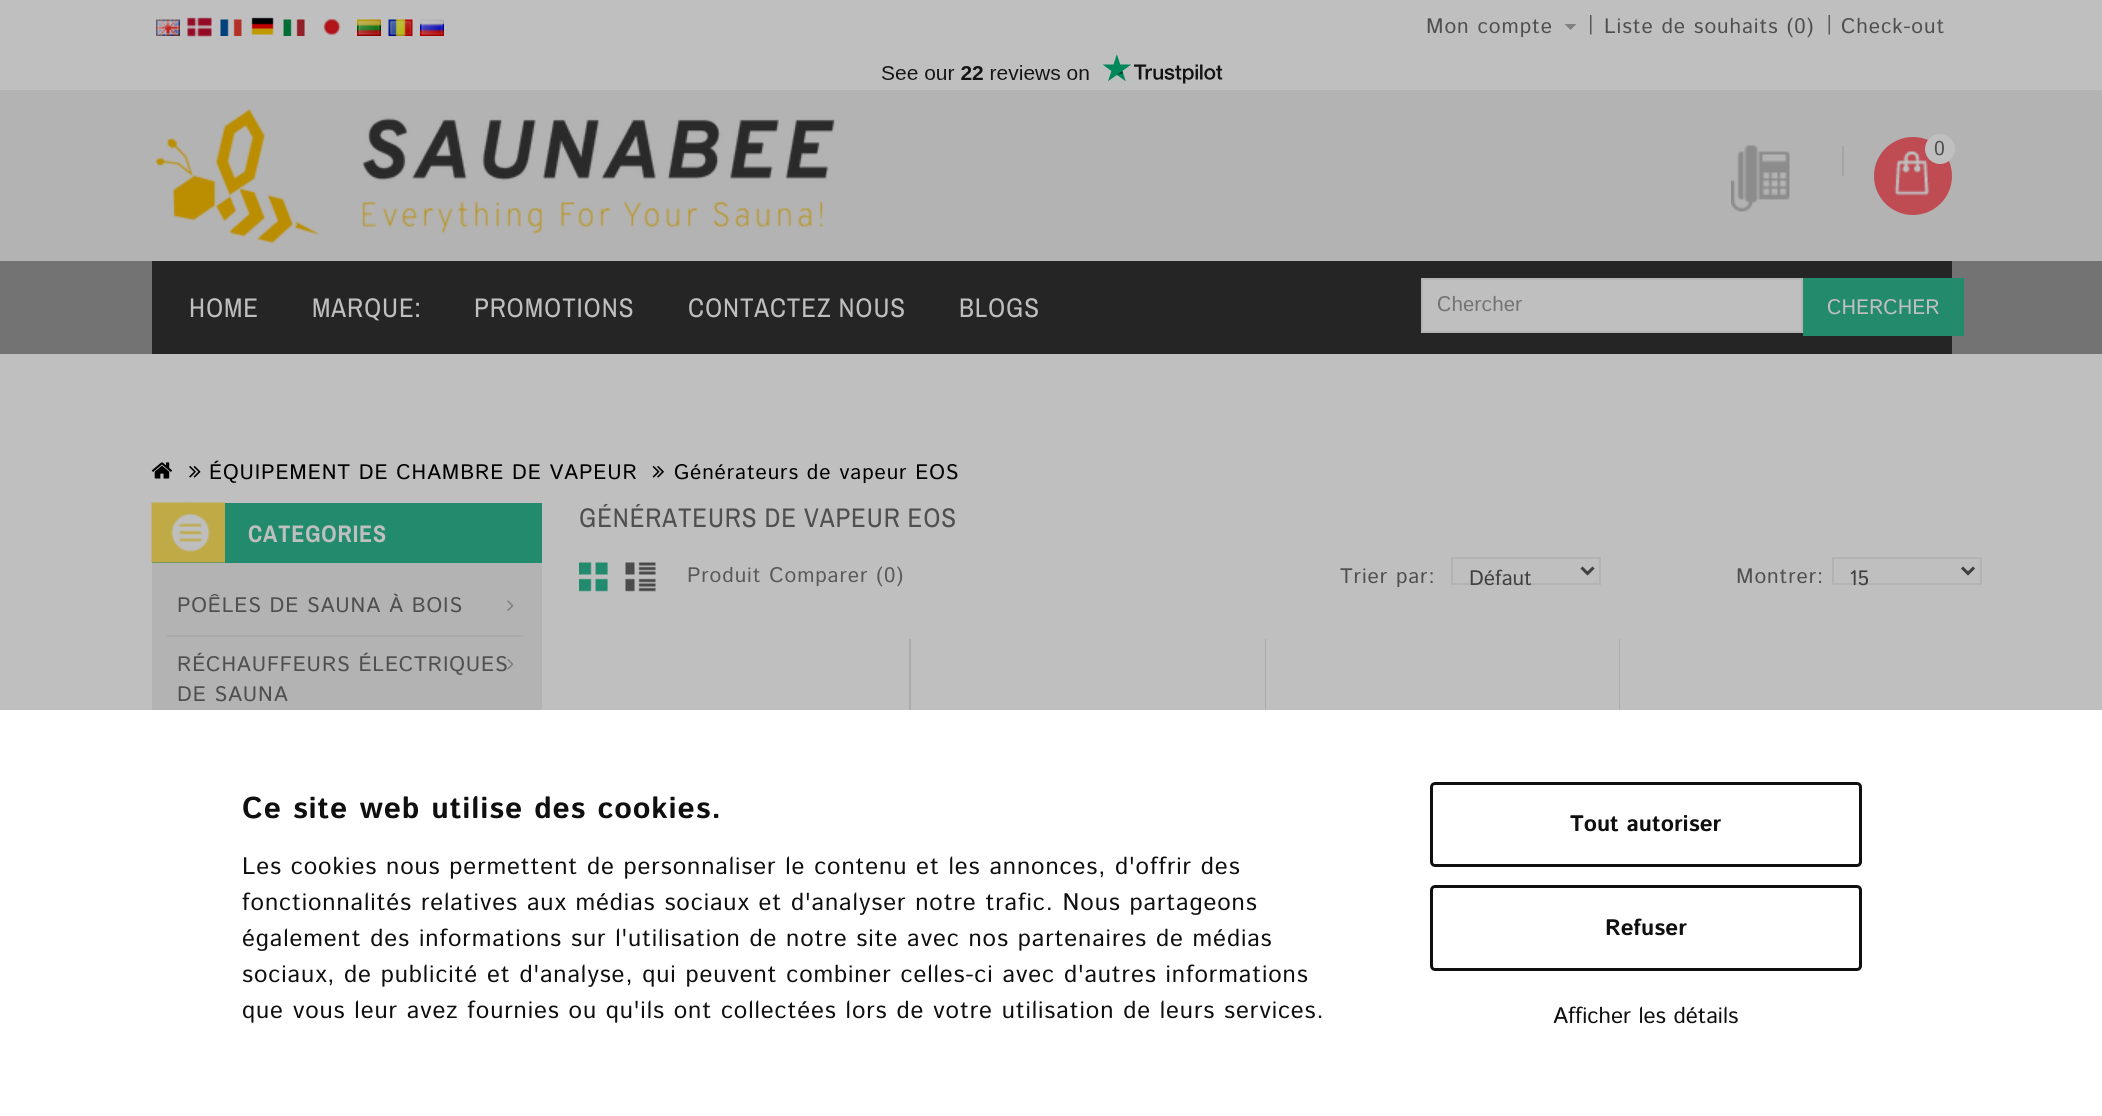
import math
import cairo


def use_color(cr, r, g, b):
  cr.set_source_rgb(r / 255, g / 255, b / 255)

def text(cr, x, y, s, family, size, color, bold=False, italic=False):
  cr.select_font_face(family, cairo.FONT_SLANT_ITALIC if italic else cairo.FONT_SLANT_NORMAL, cairo.FONT_WEIGHT_BOLD if bold else cairo.FONT_WEIGHT_NORMAL)
  cr.set_font_size(size)
  use_color(cr, *color)
  cr.move_to(x, y)
  cr.show_text(s)

def spaced_text(cr, x, y, s, letter, word):
  cr.move_to(x, y)
  for ch in s:
    cr.show_text(ch)
    cr.rel_move_to(letter + word * (ch == ' '), 0)

def box(cr, x, y, w, h, *color):
  use_color(cr, *color)
  cr.rectangle(x, y, w, h)
  cr.fill()

def round_rect(cr, x, y, w, h, r):
  cr.new_sub_path()
  for i, (u, v) in enumerate([(x + w - r, y + h - r), (x + r, y + h - r), (x + r, y + r), (x + w - r, y + r)]):
    cr.arc(u, v, r, i * math.pi / 2, (i + 1) * math.pi / 2)
  cr.close_path()

def picture(cr, path, x, y, w, h):
  cr.save()
  cr.set_source_surface(cairo.ImageSurface.create_from_png(path), x, y)
  cr.rectangle(x, y, w, h)
  cr.fill()
  cr.restore()

def draw(cr):
  use_color(cr, 191, 191, 191)
  cr.paint()
  picture(cr, "img_01.png", 156, 19, 24, 17)
  picture(cr, "img_02.png", 187, 17, 25, 20)
  picture(cr, "img_03.png", 220, 19, 22, 17)
  picture(cr, "img_04.png", 251, 17, 23, 18)
  picture(cr, "img_05.png", 283, 19, 22, 17)
  picture(cr, "img_06.png", 323, 18, 18, 17)
  picture(cr, "img_07.png", 357, 19, 24, 17)
  picture(cr, "img_08.png", 388, 19, 25, 17)
  picture(cr, "img_09.png", 420, 19, 24, 17)
  use_color(cr, 129, 129, 129)
  cr.new_path()
  cr.move_to(1564.5, 24)
  cr.line_to(1576.5, 24)
  cr.line_to(1570.5, 30)
  cr.close_path()
  cr.fill()
  picture(cr, "img_10.png", 1590, 15, 2, 20)
  picture(cr, "img_11.png", 1828, 15, 2, 20)
  box(cr, 0, 261, 2102, 93, 115, 115, 115)
  box(cr, 152, 261, 1800, 93, 37, 37, 37)
  box(cr, 0, 90, 2102, 171, 179, 179, 179)
  picture(cr, "img_12.png", 882, 54, 341, 30)
  picture(cr, "img_13.png", 155, 109, 680, 135)
  picture(cr, "img_14.png", 1731, 145, 59, 67)
  box(cr, 1842, 146, 2, 30, 165, 165, 165)
  use_color(cr, 191, 75, 83)
  cr.arc(1913, 176, 39, 0, 2 * math.pi)
  cr.fill()
  picture(cr, "img_15.png", 1894, 151, 36, 45)
  use_color(cr, 191, 191, 191)
  cr.arc(1940, 149, 15, 0, 2 * math.pi)
  cr.fill()
  cr.rectangle(1422, 279, 380, 53)
  cr.fill_preserve()
  use_color(cr, 179, 179, 179)
  cr.stroke()
  box(cr, 1803, 278, 161, 58, 35, 138, 108)
  picture(cr, "img_16.png", 151, 462, 21, 17)
  picture(cr, "img_17.png", 189, 466, 12, 12)
  picture(cr, "img_18.png", 652, 466, 12, 12)
  box(cr, 152, 503, 390, 60, 35, 139, 109)
  picture(cr, "img_19.png", 151, 502, 74, 61)
  box(cr, 152, 563, 390, 147, 179, 179, 179)
  box(cr, 167, 635, 357, 2, 170, 170, 170)
  picture(cr, "img_20.png", 507, 600, 7, 11)
  picture(cr, "img_21.png", 507, 659, 7, 11)
  picture(cr, "img_22.png", 579, 562, 29, 30)
  picture(cr, "img_23.png", 625, 562, 31, 30)
  cr.rectangle(1452, 558, 148, 26)
  use_color(cr, 179, 179, 179)
  cr.stroke()
  cr.new_path()
  cr.move_to(1581.5, 567.5)
  cr.line_to(1587.5, 573.5)
  cr.line_to(1593.5, 567.5)
  use_color(cr, 64, 64, 64)
  cr.set_line_width(3)
  cr.stroke()
  cr.rectangle(1833, 558, 148, 26)
  use_color(cr, 179, 179, 179)
  cr.set_line_width(2)
  cr.stroke()
  cr.new_path()
  cr.move_to(1962, 567.5)
  cr.line_to(1968, 573.5)
  cr.line_to(1974, 567.5)
  use_color(cr, 64, 64, 64)
  cr.set_line_width(3)
  cr.stroke()
  box(cr, 909, 639, 2, 71, 171, 171, 171)
  box(cr, 1265, 639, 1, 71, 171, 171, 171)
  box(cr, 1619, 639, 1, 71, 171, 171, 171)
  box(cr, 0, 710, 2102, 406, 255, 255, 255)
  round_rect(cr, 1431.5, 783.5, 429, 82, 3.5)
  use_color(cr, 15, 15, 15)
  cr.stroke()
  round_rect(cr, 1431.5, 886.5, 429, 83, 3.5)
  cr.stroke()
  cr.select_font_face("Istok Web")
  cr.set_font_size(21)
  use_color(cr, 79, 79, 79)
  spaced_text(cr, 1426, 33, "Mon compte", 0.9, 0)
  spaced_text(cr, 1604, 33, "Liste de souhaits (0)", 0.9, 0)
  spaced_text(cr, 1841, 33, "Check-out", 0.9, 0)
  cr.select_font_face("Archivo Narrow")
  cr.set_font_size(27)
  use_color(cr, 191, 191, 191)
  spaced_text(cr, 189, 317, "HOME", 0.9, 0)
  spaced_text(cr, 312, 317, "MARQUE:", 0.9, 0)
  spaced_text(cr, 474, 317, "PROMOTIONS", 0.9, 0)
  spaced_text(cr, 688, 317, "CONTACTEZ NOUS", 0.9, 0)
  spaced_text(cr, 959, 317, "BLOGS", 0.9, 0)
  text(cr, 1934, 155, "0", "Istok Web", 20, (79, 79, 79))
  text(cr, 1437, 311, "Chercher", "Istok Web", 21, (115, 115, 115))
  text(cr, 1827, 314, "CHERCHER", "Istok Web", 21, (191, 191, 191))
  use_color(cr, 0, 0, 0)
  spaced_text(cr, 209, 479, "ÉQUIPEMENT DE CHAMBRE DE VAPEUR", 0.9, 0)
  spaced_text(cr, 674, 479, "Générateurs de vapeur EOS", 0.9, 0)
  cr.select_font_face("Archivo Narrow", cairo.FONT_SLANT_NORMAL, cairo.FONT_WEIGHT_BOLD)
  cr.set_font_size(24)
  use_color(cr, 191, 191, 191)
  spaced_text(cr, 248, 542, "CATEGORIES", 0.9, 0)
  cr.select_font_face("Istok Web")
  cr.set_font_size(21)
  use_color(cr, 79, 79, 79)
  spaced_text(cr, 177, 612, "POÊLES DE SAUNA À BOIS", 0.9, 0)
  spaced_text(cr, 177, 671, "RÉCHAUFFEURS ÉLECTRIQUES", 0.9, 0)
  spaced_text(cr, 177, 701, "DE SAUNA", 0.9, 0)
  cr.select_font_face("Archivo Narrow")
  cr.set_font_size(27)
  spaced_text(cr, 579, 527, "GÉNÉRATEURS DE VAPEUR EOS", 0.9, 0)
  cr.select_font_face("Istok Web")
  cr.set_font_size(21)
  use_color(cr, 89, 89, 89)
  spaced_text(cr, 687, 582, "Produit Comparer (0)", 0.9, 0)
  use_color(cr, 79, 79, 79)
  spaced_text(cr, 1340, 583, "Trier par:", 0.9, 0)
  text(cr, 1469, 585, "Défaut", "Istok Web", 21, (64, 64, 64))
  use_color(cr, 79, 79, 79)
  spaced_text(cr, 1736, 583, "Montrer:", 0.9, 0)
  text(cr, 1849, 585, "15", "Istok Web", 21, (64, 64, 64))
  cr.select_font_face("Istok Web", cairo.FONT_SLANT_NORMAL, cairo.FONT_WEIGHT_BOLD)
  cr.set_font_size(30)
  use_color(cr, 15, 15, 15)
  spaced_text(cr, 242, 818, "Ce site web utilise des cookies.", 0.9, 0)
  cr.select_font_face("Istok Web")
  cr.set_font_size(24)
  spaced_text(cr, 242, 874, "Les cookies nous permettent de personnaliser le contenu et les annonces, d'offrir des", 0.9, 0)
  spaced_text(cr, 242, 910, "fonctionnalités relatives aux médias sociaux et d'analyser notre trafic. Nous partageons", 0.9, 0)
  spaced_text(cr, 242, 946, "également des informations sur l'utilisation de notre site avec nos partenaires de médias", 0.9, 0)
  spaced_text(cr, 242, 982, "sociaux, de publicité et d'analyse, qui peuvent combiner celles-ci avec d'autres informations", 0.9, 0)
  spaced_text(cr, 242, 1018, "que vous leur avez fournies ou qu'ils ont collectées lors de votre utilisation de leurs services.", 0.9, 0)
  text(cr, 1570, 831, "Tout autoriser", "Istok Web", 22.5, (15, 15, 15), bold=True)
  text(cr, 1605, 935, "Refuser", "Istok Web", 22.5, (15, 15, 15), bold=True)
  text(cr, 1553, 1023, "Afficher les détails", "Istok Web", 22.5, (15, 15, 15))


surface = cairo.ImageSurface(cairo.FORMAT_RGB24, 2102, 1116)
cr = cairo.Context(surface)
options = cairo.FontOptions()
options.set_hint_metrics(cairo.HINT_METRICS_OFF)
options.set_hint_style(cairo.HINT_STYLE_NONE)
cr.set_font_options(options)
cr.set_miter_limit(4)
draw(cr)
surface.write_to_png("out.png")
